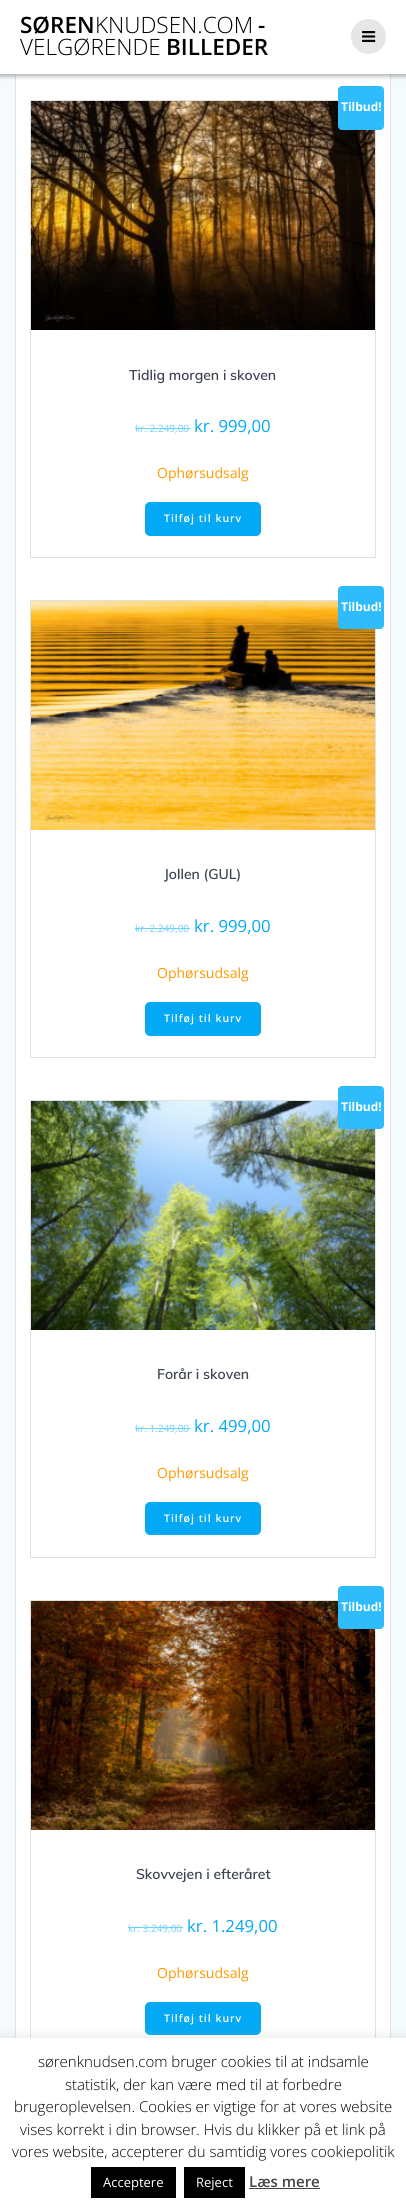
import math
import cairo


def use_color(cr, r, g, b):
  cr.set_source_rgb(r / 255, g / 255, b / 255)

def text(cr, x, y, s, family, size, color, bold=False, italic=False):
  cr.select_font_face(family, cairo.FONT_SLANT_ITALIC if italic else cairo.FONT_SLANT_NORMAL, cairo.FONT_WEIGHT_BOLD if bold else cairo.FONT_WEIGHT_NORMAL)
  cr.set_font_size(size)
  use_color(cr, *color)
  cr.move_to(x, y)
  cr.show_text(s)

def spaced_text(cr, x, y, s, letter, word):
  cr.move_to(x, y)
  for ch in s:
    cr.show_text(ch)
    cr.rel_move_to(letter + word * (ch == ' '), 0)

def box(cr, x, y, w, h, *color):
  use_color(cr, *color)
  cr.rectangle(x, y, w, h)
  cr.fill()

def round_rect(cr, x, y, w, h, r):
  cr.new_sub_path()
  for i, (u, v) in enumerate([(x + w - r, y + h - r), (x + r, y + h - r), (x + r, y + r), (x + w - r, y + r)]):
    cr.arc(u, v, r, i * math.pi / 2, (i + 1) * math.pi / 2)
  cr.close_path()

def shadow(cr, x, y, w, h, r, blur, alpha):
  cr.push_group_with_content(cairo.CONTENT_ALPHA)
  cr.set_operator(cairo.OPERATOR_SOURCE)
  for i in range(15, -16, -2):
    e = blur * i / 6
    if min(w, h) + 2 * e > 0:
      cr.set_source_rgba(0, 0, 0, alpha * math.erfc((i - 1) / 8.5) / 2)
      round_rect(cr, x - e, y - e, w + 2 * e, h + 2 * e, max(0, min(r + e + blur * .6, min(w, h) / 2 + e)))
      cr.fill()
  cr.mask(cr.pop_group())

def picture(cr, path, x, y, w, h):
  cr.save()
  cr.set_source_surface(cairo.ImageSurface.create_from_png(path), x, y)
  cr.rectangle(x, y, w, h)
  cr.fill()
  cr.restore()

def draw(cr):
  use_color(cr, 245, 250, 253)
  cr.paint()
  box(cr, 16, 74, 374, 1964, 255, 255, 255)
  cr.rectangle(15.5, -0.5, 375, 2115)
  use_color(cr, 224, 225, 225)
  cr.set_line_width(1)
  cr.stroke()
  use_color(cr, 0, 0, 0)
  shadow(cr, -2, -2, 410, 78, 0, 2.5, 0.33)
  box(cr, 0, 0, 406, 74, 255, 255, 255)
  use_color(cr, 230, 230, 230)
  cr.arc(368.5, 36.5, 17.5, 0, 2 * math.pi)
  cr.fill()
  picture(cr, "img_01.png", 362, 31, 14, 11)
  cr.rectangle(30.5, 100.5, 345, 457)
  use_color(cr, 224, 225, 225)
  cr.stroke()
  picture(cr, "img_02.png", 31, 101, 344, 229)
  use_color(cr, 46, 188, 252)
  round_rect(cr, 338, 86, 46, 44, 4)
  cr.fill()
  box(cr, 135, 428, 55, 1, 109, 208, 253)
  use_color(cr, 3, 169, 244)
  round_rect(cr, 146, 503, 114, 32, 4)
  cr.fill_preserve()
  cr.set_line_width(2)
  cr.stroke()
  cr.rectangle(30.5, 600.5, 345, 457)
  use_color(cr, 224, 225, 225)
  cr.set_line_width(1)
  cr.stroke()
  picture(cr, "img_03.png", 31, 601, 344, 229)
  use_color(cr, 46, 188, 252)
  round_rect(cr, 338, 586, 46, 43, 4)
  cr.fill()
  box(cr, 135, 928, 55, 1, 109, 208, 253)
  use_color(cr, 3, 169, 244)
  round_rect(cr, 146, 1003, 114, 32, 4)
  cr.fill_preserve()
  cr.set_line_width(2)
  cr.stroke()
  cr.rectangle(30.5, 1100.5, 345, 457)
  use_color(cr, 224, 225, 225)
  cr.set_line_width(1)
  cr.stroke()
  picture(cr, "img_04.png", 31, 1101, 344, 229)
  use_color(cr, 46, 188, 252)
  round_rect(cr, 338, 1086, 46, 43, 4)
  cr.fill()
  box(cr, 135, 1428, 55, 1, 109, 208, 253)
  use_color(cr, 3, 169, 244)
  round_rect(cr, 146, 1503, 114, 31, 4)
  cr.fill_preserve()
  cr.set_line_width(2)
  cr.stroke()
  cr.rectangle(30.5, 1600.5, 345, 457)
  use_color(cr, 224, 225, 225)
  cr.set_line_width(1)
  cr.stroke()
  picture(cr, "img_05.png", 31, 1601, 344, 229)
  use_color(cr, 46, 188, 252)
  round_rect(cr, 338, 1586, 46, 43, 4)
  cr.fill()
  box(cr, 128, 1927, 55, 1, 109, 208, 253)
  use_color(cr, 3, 169, 244)
  round_rect(cr, 146, 2003, 114, 31, 4)
  cr.fill_preserve()
  cr.set_line_width(2)
  cr.stroke()
  use_color(cr, 172, 171, 171)
  shadow(cr, 0, 2037, 406, 172, 0, 5, 0.3)
  box(cr, 0, 2038, 406, 172, 255, 255, 255)
  box(cr, 91, 2167, 85, 31, 0, 0, 0)
  box(cr, 184, 2167, 61, 31, 0, 0, 0)
  box(cr, 249, 2188, 71, 1, 68, 68, 68)
  text(cr, 20, 33, "SØREN", "Open Sans SemiBold", 22.5, (0, 0, 0))
  text(cr, 95, 33, "KNUDSEN.COM", "Open Sans Light", 22.5, (0, 0, 0))
  text(cr, 258, 33, "-", "Open Sans SemiBold", 22.5, (0, 0, 0))
  text(cr, 20, 55, "VELGØRENDE", "Open Sans Light", 22.5, (0, 0, 0))
  text(cr, 166, 55, "BILLEDER", "Open Sans SemiBold", 22.5, (0, 0, 0))
  text(cr, 341, 111, "Tilbud!", "Open Sans", 12, (255, 255, 255), bold=True)
  text(cr, 129, 380, "Tidlig morgen i skoven", "Muli SemiBold", 14, (60, 66, 79))
  text(cr, 135, 432, "kr. 2.249,00", "Open Sans", 10, (109, 208, 253))
  text(cr, 194, 432, "kr. 999,00", "Open Sans", 16.75, (3, 169, 244))
  text(cr, 157, 478, "Ophørsudsalg", "Open Sans", 14, (255, 152, 0))
  cr.select_font_face("Open Sans SemiBold")
  cr.set_font_size(10.5)
  use_color(cr, 255, 255, 255)
  spaced_text(cr, 164, 522, "Tilføj til kurv", 1, 0)
  text(cr, 341, 611, "Tilbud!", "Open Sans", 12, (255, 255, 255), bold=True)
  text(cr, 164, 879, "Jollen (GUL)", "Muli SemiBold", 14, (60, 66, 79))
  text(cr, 135, 932, "kr. 2.249,00", "Open Sans", 10, (109, 208, 253))
  text(cr, 194, 932, "kr. 999,00", "Open Sans", 16.75, (3, 169, 244))
  text(cr, 157, 978, "Ophørsudsalg", "Open Sans", 14, (255, 152, 0))
  cr.select_font_face("Open Sans SemiBold")
  cr.set_font_size(10.5)
  use_color(cr, 255, 255, 255)
  spaced_text(cr, 164, 1022, "Tilføj til kurv", 1, 0)
  text(cr, 341, 1111, "Tilbud!", "Open Sans", 12, (255, 255, 255), bold=True)
  text(cr, 157, 1379, "Forår i skoven", "Muli SemiBold", 14, (60, 66, 79))
  text(cr, 135, 1432, "kr. 1.249,00", "Open Sans", 10, (109, 208, 253))
  text(cr, 194, 1432, "kr. 499,00", "Open Sans", 16.75, (3, 169, 244))
  text(cr, 157, 1478, "Ophørsudsalg", "Open Sans", 14, (255, 152, 0))
  cr.select_font_face("Open Sans SemiBold")
  cr.set_font_size(10.5)
  use_color(cr, 255, 255, 255)
  spaced_text(cr, 164, 1522, "Tilføj til kurv", 1, 0)
  text(cr, 341, 1611, "Tilbud!", "Open Sans", 12, (255, 255, 255), bold=True)
  text(cr, 136, 1879, "Skovvejen i efteråret", "Muli SemiBold", 14, (60, 66, 79))
  text(cr, 128, 1932, "kr. 3.249,00", "Open Sans", 10, (109, 208, 253))
  text(cr, 187, 1932, "kr. 1.249,00", "Open Sans", 16.75, (3, 169, 244))
  text(cr, 157, 1978, "Ophørsudsalg", "Open Sans", 14, (255, 152, 0))
  cr.select_font_face("Open Sans SemiBold")
  cr.set_font_size(10.5)
  use_color(cr, 255, 255, 255)
  spaced_text(cr, 164, 2022, "Tilføj til kurv", 1, 0)
  text(cr, 38, 2067, "sørenknudsen.com bruger cookies til at indsamle", "Open Sans Light", 15, (0, 0, 0))
  text(cr, 65, 2090, "statistik, der kan være med til at forbedre", "Open Sans Light", 15, (0, 0, 0))
  text(cr, 14, 2112, "brugeroplevelsen. Cookies er vigtige for at vores website", "Open Sans Light", 15, (0, 0, 0))
  text(cr, 20, 2135, "vises korrekt i din browser. Hvis du klikker på et link på", "Open Sans Light", 15, (0, 0, 0))
  text(cr, 12, 2157, "vores website, accepterer du samtidig vores cookiepolitik", "Open Sans Light", 15, (0, 0, 0))
  text(cr, 103, 2187, "Acceptere", "Open Sans", 13, (255, 255, 255))
  text(cr, 196, 2187, "Reject", "Open Sans", 13, (255, 255, 255))
  text(cr, 249, 2187, "Læs mere", "Open Sans SemiBold", 15, (68, 68, 68))


surface = cairo.ImageSurface(cairo.FORMAT_RGB24, 406, 2210)
cr = cairo.Context(surface)
options = cairo.FontOptions()
options.set_hint_metrics(cairo.HINT_METRICS_OFF)
options.set_hint_style(cairo.HINT_STYLE_NONE)
cr.set_font_options(options)
cr.set_miter_limit(4)
draw(cr)
surface.write_to_png("out.png")
